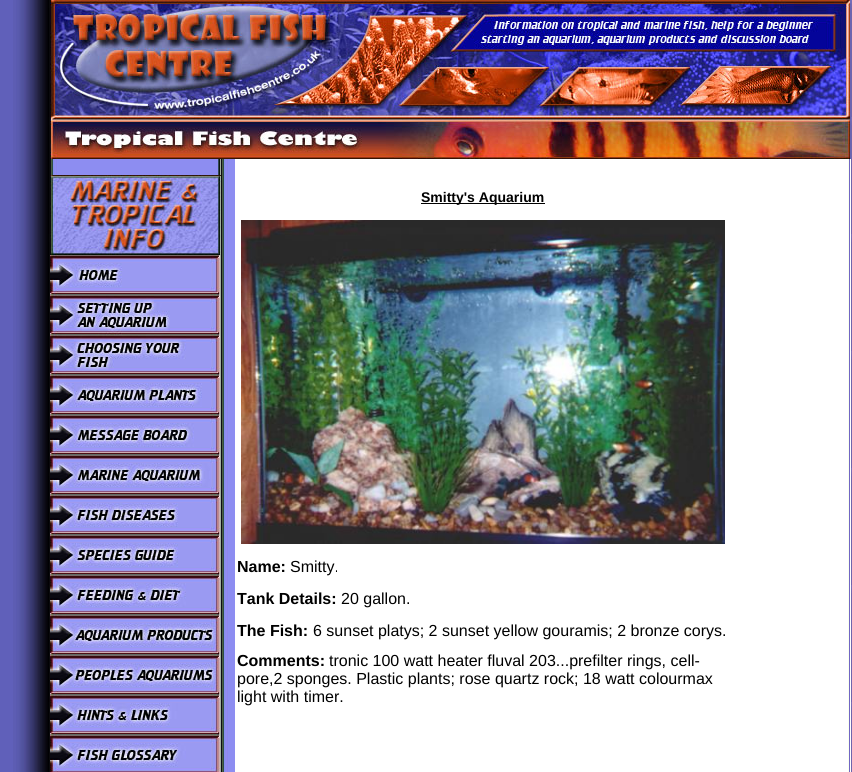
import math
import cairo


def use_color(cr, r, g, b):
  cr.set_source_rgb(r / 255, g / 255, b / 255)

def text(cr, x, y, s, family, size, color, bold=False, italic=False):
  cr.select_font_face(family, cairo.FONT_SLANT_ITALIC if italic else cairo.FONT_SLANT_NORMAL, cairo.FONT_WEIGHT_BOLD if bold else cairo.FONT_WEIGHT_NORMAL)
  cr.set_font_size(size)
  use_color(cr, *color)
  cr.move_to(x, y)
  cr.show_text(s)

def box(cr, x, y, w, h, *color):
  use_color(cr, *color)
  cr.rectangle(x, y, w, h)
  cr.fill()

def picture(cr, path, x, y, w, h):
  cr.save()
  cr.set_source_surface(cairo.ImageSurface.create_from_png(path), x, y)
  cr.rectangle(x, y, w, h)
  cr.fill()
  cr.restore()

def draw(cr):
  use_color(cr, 96, 96, 186)
  cr.paint()
  picture(cr, "img_01.png", 13, 0, 37, 772)
  picture(cr, "img_02.png", 50, 0, 801, 159)
  picture(cr, "img_03.png", 851, 0, 1, 772)
  picture(cr, "img_04.png", 50, 159, 185, 613)
  picture(cr, "img_05.png", 50, 175, 171, 80)
  picture(cr, "img_06.png", 50, 255, 170, 40)
  picture(cr, "img_07.png", 50, 295, 170, 40)
  picture(cr, "img_08.png", 50, 335, 170, 40)
  picture(cr, "img_09.png", 50, 375, 170, 40)
  picture(cr, "img_10.png", 50, 415, 170, 40)
  picture(cr, "img_11.png", 50, 455, 170, 40)
  picture(cr, "img_12.png", 50, 495, 170, 40)
  picture(cr, "img_13.png", 50, 535, 170, 40)
  picture(cr, "img_14.png", 50, 575, 170, 40)
  picture(cr, "img_15.png", 50, 615, 170, 40)
  picture(cr, "img_16.png", 50, 655, 170, 40)
  picture(cr, "img_17.png", 50, 695, 170, 40)
  picture(cr, "img_18.png", 50, 735, 170, 37)
  box(cr, 235, 159, 616, 613, 255, 255, 255)
  box(cr, 421, 203, 124, 1, 0, 0, 0)
  picture(cr, "img_19.png", 241, 220, 484, 324)
  picture(cr, "img_20.png", 848, 159, 2, 613)
  text(cr, 421, 202, "Smitty's Aquarium", "Liberation Sans", 14, (0, 0, 0), bold=True)
  text(cr, 237, 572, "Name:", "Liberation Sans", 16, (0, 0, 0), bold=True)
  text(cr, 290, 572, "Smitty.", "Liberation Sans", 16, (0, 0, 0))
  text(cr, 237, 604, "Tank Details:", "Liberation Sans", 16, (0, 0, 0), bold=True)
  text(cr, 341, 604, "20 gallon.", "Liberation Sans", 16, (0, 0, 0))
  text(cr, 237, 636, "The Fish:", "Liberation Sans", 16, (0, 0, 0), bold=True)
  text(cr, 313, 636, "6 sunset platys; 2 sunset yellow gouramis; 2 bronze corys.", "Liberation Sans", 16, (0, 0, 0))
  text(cr, 237, 666, "Comments:", "Liberation Sans", 16, (0, 0, 0), bold=True)
  text(cr, 329, 666, "tronic 100 watt heater fluval 203...prefilter rings, cell-", "Liberation Sans", 16, (0, 0, 0))
  text(cr, 237, 684, "pore,2 sponges. Plastic plants; rose quartz rock; 18 watt colourmax", "Liberation Sans", 16, (0, 0, 0))
  text(cr, 237, 702, "light with timer.", "Liberation Sans", 16, (0, 0, 0))


surface = cairo.ImageSurface(cairo.FORMAT_RGB24, 852, 772)
cr = cairo.Context(surface)
options = cairo.FontOptions()
options.set_hint_metrics(cairo.HINT_METRICS_OFF)
options.set_hint_style(cairo.HINT_STYLE_NONE)
cr.set_font_options(options)
cr.set_miter_limit(4)
draw(cr)
surface.write_to_png("out.png")
